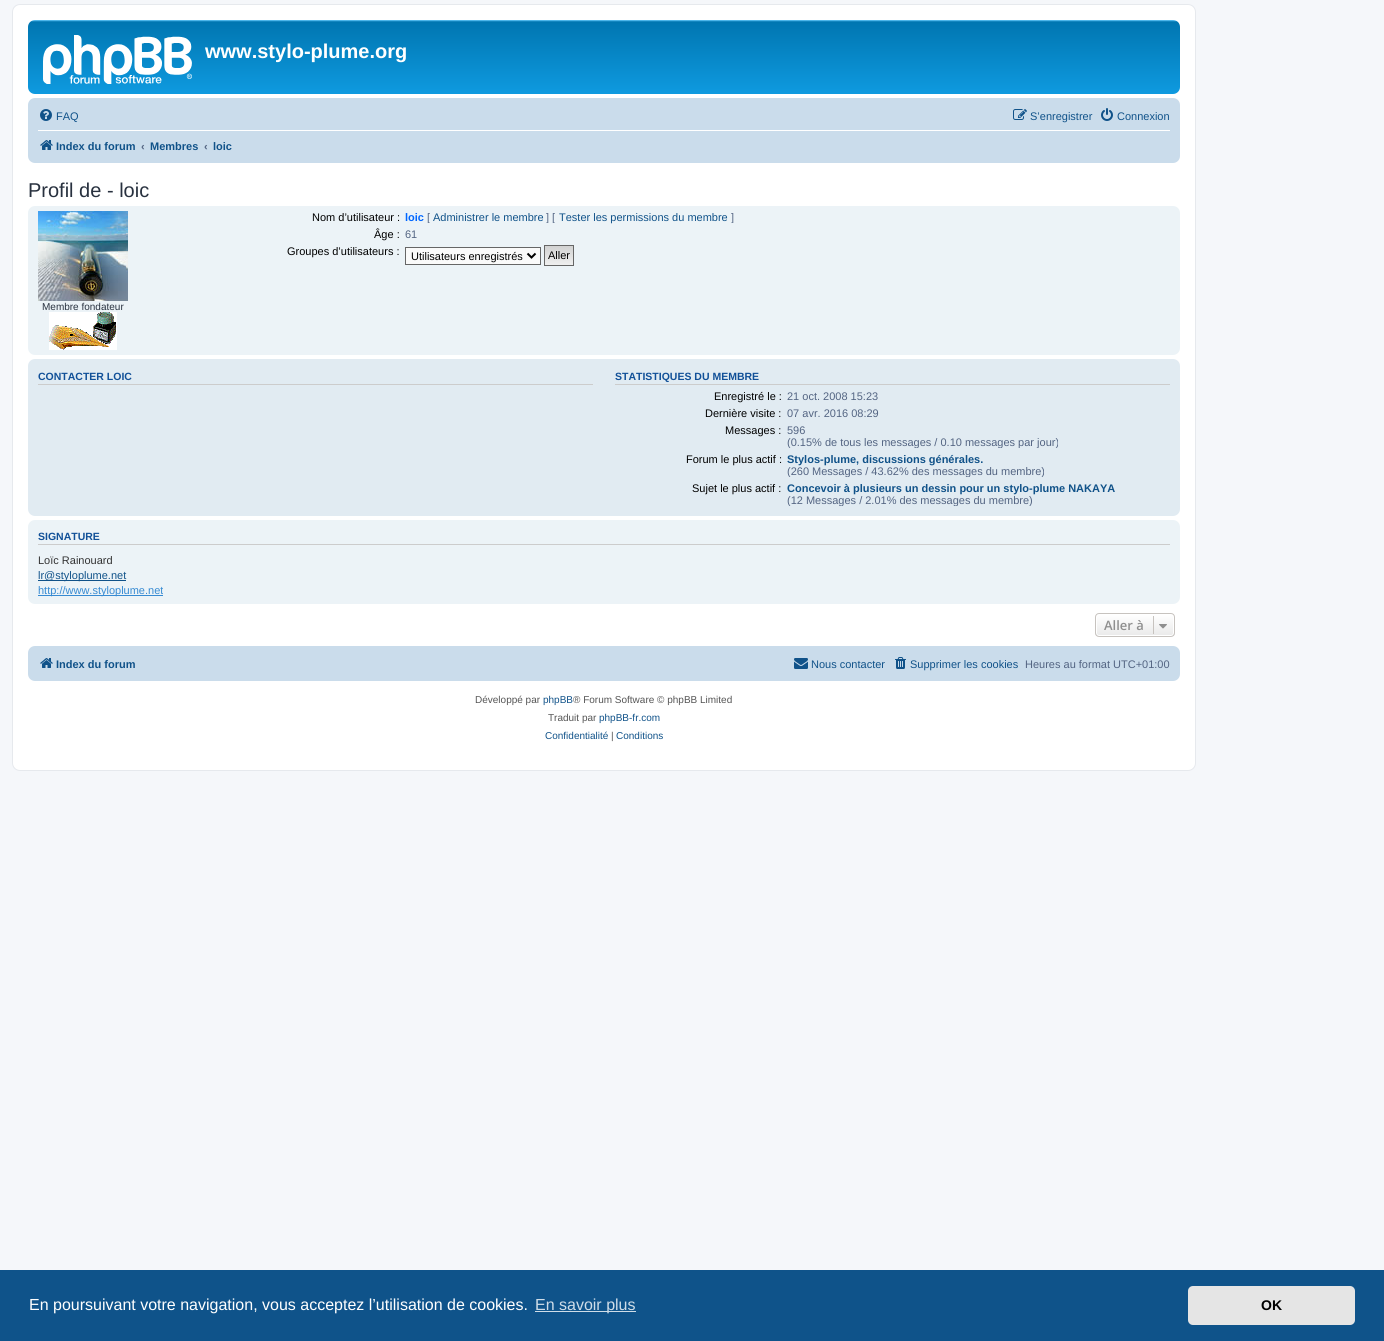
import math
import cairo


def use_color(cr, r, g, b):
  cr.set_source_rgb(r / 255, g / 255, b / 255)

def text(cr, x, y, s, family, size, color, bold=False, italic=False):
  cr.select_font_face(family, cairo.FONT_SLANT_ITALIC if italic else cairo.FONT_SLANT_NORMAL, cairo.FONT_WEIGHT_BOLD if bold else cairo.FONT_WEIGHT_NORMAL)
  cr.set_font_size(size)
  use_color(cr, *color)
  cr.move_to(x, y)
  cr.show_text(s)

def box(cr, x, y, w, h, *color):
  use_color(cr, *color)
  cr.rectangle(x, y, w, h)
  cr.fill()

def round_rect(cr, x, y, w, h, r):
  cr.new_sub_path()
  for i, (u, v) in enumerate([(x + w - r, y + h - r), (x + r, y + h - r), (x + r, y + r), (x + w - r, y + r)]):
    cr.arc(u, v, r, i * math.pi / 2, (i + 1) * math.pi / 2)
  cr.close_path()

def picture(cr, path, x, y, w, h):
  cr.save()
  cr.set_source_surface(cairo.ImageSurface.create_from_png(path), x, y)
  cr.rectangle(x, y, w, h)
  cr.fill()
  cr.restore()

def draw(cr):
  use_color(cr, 245, 247, 250)
  cr.paint()
  use_color(cr, 255, 255, 255)
  round_rect(cr, 12.5, 4.5, 1183, 766, 7.5)
  cr.fill_preserve()
  use_color(cr, 230, 233, 237)
  cr.set_line_width(1)
  cr.stroke()
  gradient = cairo.LinearGradient(604, 20, 604, 112)
  gradient.add_color_stop_rgba(0, 0.416, 0.808, 1, 1)
  gradient.add_color_stop_rgba(0.02, 0, 0.463, 0.694, 1)
  gradient.add_color_stop_rgba(1, 0.071, 0.639, 0.922, 1)
  cr.set_source(gradient)
  round_rect(cr, 28, 20, 1152, 74, 7)
  cr.fill()
  picture(cr, "img_01.png", 43, 35, 149, 49)
  use_color(cr, 202, 220, 235)
  round_rect(cr, 28, 98, 1152, 65, 7)
  cr.fill()
  picture(cr, "img_02.png", 40, 109, 12, 12)
  picture(cr, "img_03.png", 1013, 109, 14, 11)
  picture(cr, "img_04.png", 1101, 108, 12, 13)
  box(cr, 38, 130, 1132, 1, 255, 255, 255)
  picture(cr, "img_05.png", 40, 140, 13, 10)
  use_color(cr, 236, 243, 247)
  round_rect(cr, 28, 206, 1152, 149, 7)
  cr.fill()
  use_color(cr, 250, 250, 250)
  cr.rectangle(405.5, 247.5, 135, 17)
  cr.fill_preserve()
  use_color(cr, 102, 102, 102)
  cr.stroke()
  cr.new_path()
  cr.move_to(527.5, 253.5)
  cr.line_to(531.5, 257.5)
  cr.line_to(535.5, 253.5)
  use_color(cr, 0, 0, 0)
  cr.set_line_width(2)
  cr.stroke()
  gradient = cairo.LinearGradient(559, 246, 559, 265)
  gradient.add_color_stop_rgba(0, 0.824, 0.824, 0.824, 1)
  gradient.add_color_stop_rgba(1, 0.937, 0.937, 0.937, 1)
  cr.set_source(gradient)
  cr.rectangle(545, 246, 28, 19)
  cr.fill()
  cr.rectangle(544.5, 245.5, 29, 20)
  use_color(cr, 102, 102, 102)
  cr.set_line_width(1)
  cr.stroke()
  picture(cr, "img_06.png", 38, 211, 90, 90)
  picture(cr, "img_07.png", 49, 312, 68, 38)
  use_color(cr, 225, 235, 242)
  round_rect(cr, 28, 359, 1152, 157, 7)
  cr.fill()
  box(cr, 38, 384, 555, 1, 204, 204, 204)
  box(cr, 615, 384, 555, 1, 204, 204, 204)
  use_color(cr, 236, 243, 247)
  round_rect(cr, 28, 520, 1152, 84, 7)
  cr.fill()
  box(cr, 38, 544, 1132, 1, 204, 204, 204)
  box(cr, 38, 580, 88, 1, 16, 82, 137)
  box(cr, 38, 595, 125, 1, 54, 138, 210)
  cr.save()
  round_rect(cr, 1095, 613, 80, 24, 4)
  cr.clip()
  gradient = cairo.LinearGradient(1135, 614, 1135, 636)
  gradient.add_color_stop_rgba(0, 1, 1, 1, 1)
  gradient.add_color_stop_rgba(1, 0.914, 0.914, 0.914, 1)
  cr.set_source(gradient)
  cr.rectangle(1095, 614, 80, 22)
  cr.fill()
  cr.restore()
  round_rect(cr, 1096.5, 614.5, 77, 21, 2.5)
  use_color(cr, 255, 255, 255)
  cr.stroke()
  round_rect(cr, 1095.5, 613.5, 79, 23, 3.5)
  use_color(cr, 199, 195, 191)
  cr.stroke()
  box(cr, 1153, 616, 1, 18, 199, 195, 191)
  picture(cr, "img_08.png", 1159, 624, 8, 5)
  use_color(cr, 202, 220, 235)
  round_rect(cr, 28, 646, 1152, 35, 7)
  cr.fill()
  picture(cr, "img_05.png", 40, 658, 13, 10)
  picture(cr, "img_09.png", 794, 658, 14, 11)
  picture(cr, "img_10.png", 895, 657, 11, 12)
  box(cr, 0, 1270, 1384, 71, 15, 83, 138)
  box(cr, 535, 1311, 101, 1, 207, 221, 232)
  use_color(cr, 229, 229, 229)
  round_rect(cr, 1188, 1286, 167, 39, 5)
  cr.fill()
  text(cr, 205, 58, "www.stylo-plume.org", "Liberation Sans", 20, (255, 255, 255), bold=True)
  text(cr, 56, 120, "FAQ", "Liberation Sans", 11, (16, 82, 137))
  text(cr, 1030, 120, "S’enregistrer", "Liberation Sans", 11, (16, 82, 137))
  text(cr, 1117, 120, "Connexion", "Liberation Sans", 11, (16, 82, 137))
  text(cr, 56, 150, "Index du forum", "Liberation Sans", 11, (16, 82, 137), bold=True)
  text(cr, 141, 150, "‹", "Liberation Sans", 11, (83, 100, 130), bold=True)
  text(cr, 150, 150, "Membres", "Liberation Sans", 11, (16, 82, 137), bold=True)
  text(cr, 204, 150, "‹", "Liberation Sans", 11, (83, 100, 130), bold=True)
  text(cr, 213, 150, "loic", "Liberation Sans", 11, (16, 82, 137), bold=True)
  text(cr, 28, 197, "Profil de - loic", "Liberation Sans", 20, (40, 49, 63))
  text(cr, 312, 221, "Nom d’utilisateur :", "Liberation Sans", 11, (0, 0, 0))
  text(cr, 405, 221, "loic", "Liberation Sans", 11, (0, 102, 255), bold=True)
  cr.save()
  cr.rectangle(400, 211, 593, 12)
  cr.clip()
  text(cr, 427, 221, "[", "Liberation Sans", 11, (83, 100, 130))
  cr.restore()
  text(cr, 433, 221, "Administrer le membre", "Liberation Sans", 11, (16, 82, 137))
  cr.save()
  cr.rectangle(400, 211, 593, 12)
  cr.clip()
  text(cr, 546, 221, "] [", "Liberation Sans", 11, (83, 100, 130))
  cr.restore()
  text(cr, 559, 221, "Tester les permissions du membre", "Liberation Sans", 11, (16, 82, 137))
  cr.save()
  cr.rectangle(400, 211, 593, 12)
  cr.clip()
  text(cr, 731, 221, "]", "Liberation Sans", 11, (83, 100, 130))
  cr.restore()
  text(cr, 374, 238, "Âge :", "Liberation Sans", 11, (0, 0, 0))
  text(cr, 405, 238, "61", "Liberation Sans", 11, (83, 100, 130))
  text(cr, 287, 255, "Groupes d’utilisateurs :", "Liberation Sans", 11, (0, 0, 0))
  text(cr, 411, 260, "Utilisateurs enregistrés", "Liberation Sans", 11, (0, 0, 0))
  text(cr, 548, 259, "Aller", "Liberation Sans", 11, (0, 0, 0))
  text(cr, 42, 310, "Membre fondateur", "Liberation Sans", 10, (40, 49, 63))
  text(cr, 38, 380, "CONTACTER LOIC", "Liberation Sans", 10.5, (17, 80, 152), bold=True)
  text(cr, 615, 380, "STATISTIQUES DU MEMBRE", "Liberation Sans", 10.5, (17, 80, 152), bold=True)
  text(cr, 714, 400, "Enregistré le :", "Liberation Sans", 11, (0, 0, 0))
  text(cr, 787, 400, "21 oct. 2008 15:23", "Liberation Sans", 11, (83, 100, 130))
  text(cr, 705, 417, "Dernière visite :", "Liberation Sans", 11, (0, 0, 0))
  text(cr, 787, 417, "07 avr. 2016 08:29", "Liberation Sans", 11, (83, 100, 130))
  text(cr, 725, 434, "Messages :", "Liberation Sans", 11, (0, 0, 0))
  text(cr, 787, 434, "596", "Liberation Sans", 11, (83, 100, 130))
  cr.save()
  cr.rectangle(782, 424, 365, 24)
  cr.clip()
  text(cr, 787, 446, "(0.15% de tous les messages / 0.10 messages par jour)", "Liberation Sans", 11, (83, 100, 130))
  cr.restore()
  text(cr, 686, 463, "Forum le plus actif :", "Liberation Sans", 11, (0, 0, 0))
  text(cr, 787, 463, "Stylos-plume, discussions générales.", "Liberation Sans", 11, (16, 82, 137), bold=True)
  cr.save()
  cr.rectangle(782, 453, 365, 24)
  cr.clip()
  text(cr, 787, 475, "(260 Messages / 43.62% des messages du membre)", "Liberation Sans", 11, (83, 100, 130))
  cr.restore()
  text(cr, 692, 492, "Sujet le plus actif :", "Liberation Sans", 11, (0, 0, 0))
  text(cr, 787, 492, "Concevoir à plusieurs un dessin pour un stylo-plume NAKAYA", "Liberation Sans", 11, (16, 82, 137), bold=True)
  cr.save()
  cr.rectangle(782, 482, 365, 24)
  cr.clip()
  text(cr, 787, 504, "(12 Messages / 2.01% des messages du membre)", "Liberation Sans", 11, (83, 100, 130))
  cr.restore()
  text(cr, 38, 540, "SIGNATURE", "Liberation Sans", 10.5, (17, 80, 152), bold=True)
  text(cr, 38, 564, "Loïc Rainouard", "Liberation Sans", 11, (51, 51, 51))
  text(cr, 38, 579, "lr@styloplume.net", "Liberation Sans", 11, (16, 82, 137))
  text(cr, 38, 594, "http://www.styloplume.net", "Liberation Sans", 11, (54, 138, 210))
  text(cr, 1104, 630, "Aller à", "Open Sans SemiBold", 13, (143, 143, 143))
  text(cr, 56, 668, "Index du forum", "Liberation Sans", 11, (16, 82, 137), bold=True)
  text(cr, 811, 668, "Nous contacter", "Liberation Sans", 11, (16, 82, 137))
  text(cr, 910, 668, "Supprimer les cookies", "Liberation Sans", 11, (16, 82, 137))
  text(cr, 1025, 668, "Heures au format UTC+01:00", "Liberation Sans", 11, (83, 100, 130))
  text(cr, 475, 703, "Développé par", "Liberation Sans", 10, (85, 85, 85))
  text(cr, 543, 703, "phpBB", "Liberation Sans", 10, (16, 82, 137))
  text(cr, 573, 703, "® Forum Software © phpBB Limited", "Liberation Sans", 10, (85, 85, 85))
  text(cr, 548, 721, "Traduit par", "Liberation Sans", 10, (85, 85, 85))
  text(cr, 599, 721, "phpBB-fr.com", "Liberation Sans", 10, (16, 82, 137))
  text(cr, 545, 739, "Confidentialité", "Liberation Sans", 10, (16, 82, 137))
  text(cr, 611, 739, "|", "Liberation Sans", 10, (85, 85, 85))
  text(cr, 616, 739, "Conditions", "Liberation Sans", 10, (16, 82, 137))
  text(cr, 29, 1310, "En poursuivant votre navigation, vous acceptez l’utilisation de cookies.", "Liberation Sans", 16, (255, 255, 255))
  text(cr, 535, 1310, "En savoir plus", "Liberation Sans", 16, (207, 221, 232))
  text(cr, 1261, 1310, "OK", "Liberation Sans", 14, (0, 0, 0), bold=True)


surface = cairo.ImageSurface(cairo.FORMAT_RGB24, 1384, 1341)
cr = cairo.Context(surface)
options = cairo.FontOptions()
options.set_hint_metrics(cairo.HINT_METRICS_OFF)
options.set_hint_style(cairo.HINT_STYLE_NONE)
cr.set_font_options(options)
cr.set_miter_limit(4)
draw(cr)
surface.write_to_png("out.png")
